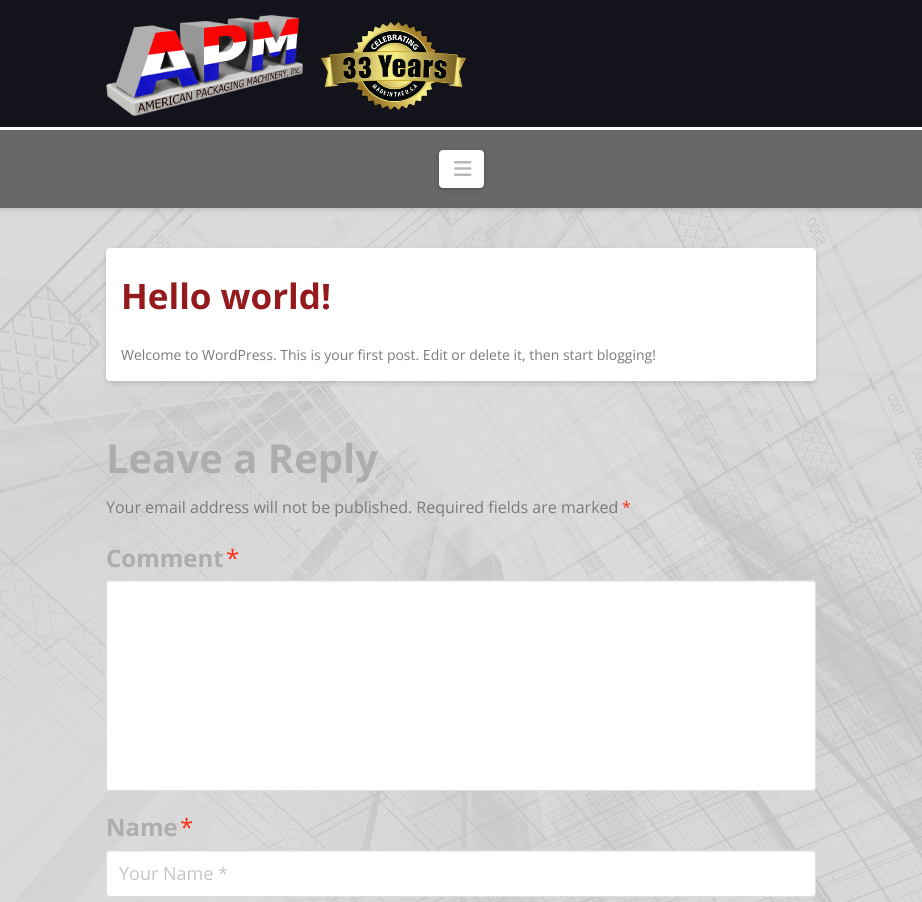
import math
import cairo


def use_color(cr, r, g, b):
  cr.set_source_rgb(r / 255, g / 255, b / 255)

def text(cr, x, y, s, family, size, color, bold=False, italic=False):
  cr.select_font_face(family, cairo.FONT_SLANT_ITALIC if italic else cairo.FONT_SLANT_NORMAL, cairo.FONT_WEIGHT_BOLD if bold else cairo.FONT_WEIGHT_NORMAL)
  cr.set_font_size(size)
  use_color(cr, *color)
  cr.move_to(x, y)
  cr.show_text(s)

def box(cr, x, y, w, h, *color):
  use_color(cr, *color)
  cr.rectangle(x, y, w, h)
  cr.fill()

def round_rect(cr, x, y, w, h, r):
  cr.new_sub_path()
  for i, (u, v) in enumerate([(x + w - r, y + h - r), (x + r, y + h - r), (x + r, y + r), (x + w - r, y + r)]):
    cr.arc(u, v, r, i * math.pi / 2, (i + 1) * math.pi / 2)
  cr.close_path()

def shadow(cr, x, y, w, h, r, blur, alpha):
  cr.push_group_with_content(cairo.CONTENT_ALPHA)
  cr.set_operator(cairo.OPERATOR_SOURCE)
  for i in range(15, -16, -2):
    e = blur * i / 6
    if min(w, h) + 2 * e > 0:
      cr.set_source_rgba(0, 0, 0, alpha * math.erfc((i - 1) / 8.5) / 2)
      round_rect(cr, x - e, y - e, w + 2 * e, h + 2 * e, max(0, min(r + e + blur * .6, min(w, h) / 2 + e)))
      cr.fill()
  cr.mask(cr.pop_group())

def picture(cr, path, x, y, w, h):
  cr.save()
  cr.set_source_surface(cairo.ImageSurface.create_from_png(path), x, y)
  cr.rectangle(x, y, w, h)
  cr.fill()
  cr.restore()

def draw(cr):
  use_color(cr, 255, 255, 255)
  cr.paint()
  picture(cr, "img_01.png", 0, 208, 922, 694)
  box(cr, 0, 0, 922, 127, 19, 19, 28)
  picture(cr, "img_02.png", 106, 15, 200, 101)
  picture(cr, "img_03.png", 321, 22, 145, 88)
  use_color(cr, 0, 0, 0)
  shadow(cr, 0, 132, 922, 78, 0, 2.5, 0.13)
  box(cr, 0, 130, 922, 78, 104, 104, 104)
  use_color(cr, 0, 0, 0)
  shadow(cr, 439, 151, 45, 38, 4, 2.5, 0.25)
  use_color(cr, 255, 255, 255)
  round_rect(cr, 439, 150, 45, 38, 4)
  cr.fill()
  picture(cr, "img_04.png", 454, 161, 18, 15)
  use_color(cr, 0, 0, 0)
  shadow(cr, 106, 250, 710, 133, 4, 2.5, 0.13)
  use_color(cr, 255, 255, 255)
  round_rect(cr, 106, 248, 710, 133, 4)
  cr.fill()
  round_rect(cr, 106, 580, 710, 211, 4)
  cr.fill()
  use_color(cr, 236, 236, 236)
  cr.new_path()
  cr.move_to(110, 582)
  cr.line_to(812, 582)
  cr.curve_to(814, 582, 815, 583, 815, 585)
  cr.curve_to(815, 583, 814, 581, 812, 581)
  cr.line_to(110, 581)
  cr.curve_to(108, 581, 107, 583, 107, 585)
  cr.curve_to(107, 583, 108, 582, 110, 582)
  cr.close_path()
  cr.fill()
  round_rect(cr, 106.5, 580.5, 709, 210, 3.5)
  use_color(cr, 221, 221, 221)
  cr.set_line_width(1)
  cr.stroke()
  use_color(cr, 255, 255, 255)
  round_rect(cr, 106, 850, 710, 47, 4)
  cr.fill()
  use_color(cr, 236, 236, 236)
  cr.new_path()
  cr.move_to(110, 852)
  cr.line_to(812, 852)
  cr.curve_to(814, 852, 815, 853, 815, 855)
  cr.curve_to(815, 853, 814, 851, 812, 851)
  cr.line_to(110, 851)
  cr.curve_to(108, 851, 107, 853, 107, 855)
  cr.curve_to(107, 853, 108, 852, 110, 852)
  cr.close_path()
  cr.fill()
  round_rect(cr, 106.5, 850.5, 709, 46, 3.5)
  use_color(cr, 221, 221, 221)
  cr.stroke()
  text(cr, 121, 309, "Hello world!", "Open Sans", 35, (148, 26, 29), bold=True)
  text(cr, 121, 360, "Welcome to WordPress. This is your first post. Edit or delete it, then start blogging!", "Open Sans", 14, (122, 122, 122))
  text(cr, 106, 473, "Leave a Reply", "Open Sans", 40, (173, 173, 173), bold=True)
  text(cr, 106, 513, "Your email address will not be published. Required fields are marked", "Open Sans", 16, (122, 122, 122))
  text(cr, 622, 513, "*", "Open Sans", 16, (255, 42, 19))
  text(cr, 106, 567, "Comment", "Open Sans", 24, (173, 173, 173), bold=True)
  text(cr, 226, 567, "*", "Open Sans", 24, (255, 42, 19))
  text(cr, 106, 836, "Name", "Open Sans", 24, (173, 173, 173), bold=True)
  text(cr, 180, 836, "*", "Open Sans", 24, (255, 42, 19))
  text(cr, 119, 880, "Your Name *", "Open Sans", 18, (197, 197, 197))


surface = cairo.ImageSurface(cairo.FORMAT_RGB24, 922, 902)
cr = cairo.Context(surface)
options = cairo.FontOptions()
options.set_hint_metrics(cairo.HINT_METRICS_OFF)
options.set_hint_style(cairo.HINT_STYLE_NONE)
cr.set_font_options(options)
cr.set_miter_limit(4)
draw(cr)
surface.write_to_png("out.png")
